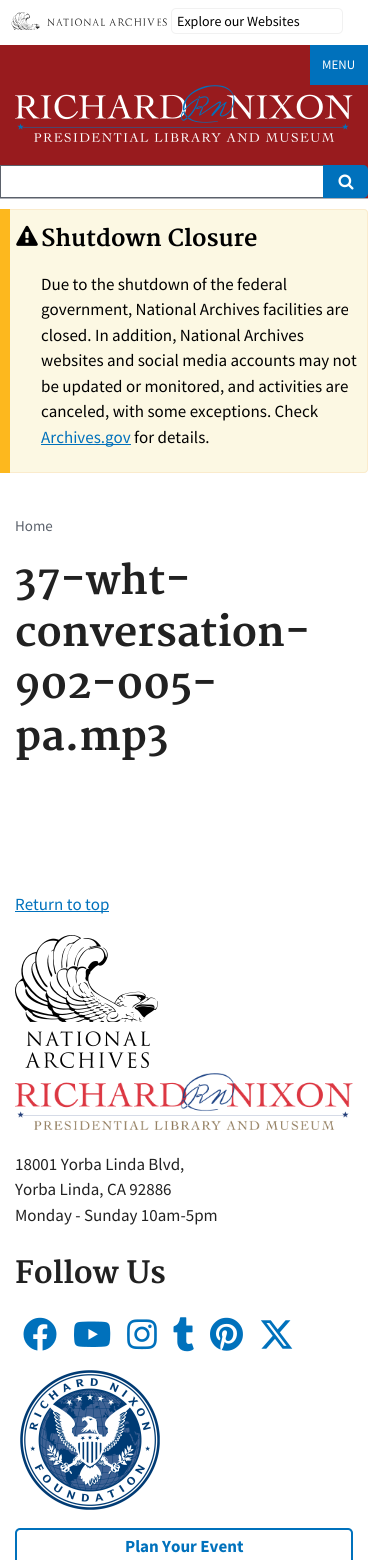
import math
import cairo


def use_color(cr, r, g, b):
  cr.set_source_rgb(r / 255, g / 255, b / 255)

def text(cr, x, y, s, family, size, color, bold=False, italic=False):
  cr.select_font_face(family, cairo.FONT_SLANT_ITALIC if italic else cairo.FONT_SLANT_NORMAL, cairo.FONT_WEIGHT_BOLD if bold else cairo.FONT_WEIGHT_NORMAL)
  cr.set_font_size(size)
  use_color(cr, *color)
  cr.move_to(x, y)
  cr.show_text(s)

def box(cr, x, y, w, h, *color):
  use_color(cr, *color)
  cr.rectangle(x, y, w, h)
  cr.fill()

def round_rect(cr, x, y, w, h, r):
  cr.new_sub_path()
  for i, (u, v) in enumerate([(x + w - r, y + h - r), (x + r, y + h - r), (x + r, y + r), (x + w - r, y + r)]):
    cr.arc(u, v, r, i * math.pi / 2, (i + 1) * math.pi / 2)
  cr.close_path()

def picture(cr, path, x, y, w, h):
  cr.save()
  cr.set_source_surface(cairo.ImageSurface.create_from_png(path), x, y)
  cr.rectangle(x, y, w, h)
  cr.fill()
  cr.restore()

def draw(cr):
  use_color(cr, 255, 255, 255)
  cr.paint()
  picture(cr, "img_01.png", 11, 12, 156, 18)
  round_rect(cr, 171.5, 8.5, 171, 25, 4.5)
  use_color(cr, 241, 241, 241)
  cr.set_line_width(1)
  cr.stroke()
  box(cr, 0, 45, 368, 153, 152, 27, 30)
  box(cr, 0, 198, 368, 1, 174, 176, 181)
  box(cr, 310, 45, 58, 40, 0, 113, 188)
  picture(cr, "img_02.png", 15, 85, 338, 57)
  box(cr, 1, 166, 322, 31, 255, 255, 255)
  box(cr, 0, 165, 323, 1, 91, 97, 107)
  box(cr, 0, 197, 323, 1, 91, 97, 107)
  box(cr, 0, 165, 1, 33, 91, 97, 107)
  use_color(cr, 0, 113, 188)
  cr.new_path()
  cr.move_to(323, 165)
  cr.line_to(363, 165)
  cr.curve_to(366, 165, 368, 167, 368, 170)
  cr.line_to(368, 193)
  cr.curve_to(368, 196, 366, 198, 363, 198)
  cr.line_to(323, 198)
  cr.close_path()
  cr.fill()
  picture(cr, "img_03.png", 338, 174, 16, 16)
  use_color(cr, 252, 248, 227)
  round_rect(cr, 0, 209, 368, 264, 4)
  cr.fill()
  picture(cr, "img_04.png", 16, 225, 22, 21)
  round_rect(cr, 0.5, 209.5, 367, 263, 3.5)
  use_color(cr, 250, 235, 204)
  cr.stroke()
  box(cr, 0, 209, 10, 264, 253, 184, 30)
  box(cr, 41, 444, 90, 1, 0, 113, 188)
  box(cr, 15, 911, 94, 1, 0, 113, 188)
  picture(cr, "img_05.png", 15, 935, 143, 133)
  picture(cr, "img_06.png", 15, 1073, 338, 57)
  picture(cr, "img_07.png", 23, 1317, 34, 34)
  picture(cr, "img_08.png", 74, 1321, 37, 26)
  picture(cr, "img_09.png", 127, 1319, 30, 31)
  picture(cr, "img_10.png", 173, 1317, 21, 35)
  picture(cr, "img_11.png", 210, 1317, 33, 34)
  picture(cr, "img_12.png", 261, 1320, 32, 29)
  picture(cr, "img_13.png", 20, 1370, 140, 140)
  round_rect(cr, 16, 1529, 336, 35, 4)
  cr.set_line_width(2)
  cr.stroke()
  text(cr, 177, 26, "Explore our Websites", "Source Sans Pro", 14, (0, 0, 0))
  text(cr, 322, 69, "MENU", "Source Sans Pro", 13, (255, 255, 255))
  text(cr, 41, 246, "Shutdown Closure", "Merriweather", 23, (0, 0, 0), bold=True)
  text(cr, 41, 290, "Due to the shutdown of the federal", "Source Sans Pro", 17, (0, 0, 0))
  text(cr, 41, 315, "government, National Archives facilities are", "Source Sans Pro", 17, (0, 0, 0))
  text(cr, 41, 341, "closed. In addition, National Archives", "Source Sans Pro", 17, (0, 0, 0))
  text(cr, 41, 366, "websites and social media accounts may not", "Source Sans Pro", 17, (0, 0, 0))
  text(cr, 41, 392, "be updated or monitored, and activities are", "Source Sans Pro", 17, (0, 0, 0))
  text(cr, 41, 417, "canceled, with some exceptions. Check", "Source Sans Pro", 17, (0, 0, 0))
  text(cr, 41, 443, "Archives.gov", "Source Sans Pro", 17, (0, 113, 188))
  text(cr, 134, 443, "for details.", "Source Sans Pro", 17, (0, 0, 0))
  text(cr, 15, 531, "Home", "Source Sans Pro", 15, (91, 97, 107))
  text(cr, 15, 594, "37-wht-", "Merriweather", 40, (33, 33, 33), bold=True)
  text(cr, 15, 646, "conversation-", "Merriweather", 40, (33, 33, 33), bold=True)
  text(cr, 15, 698, "902-005-", "Merriweather", 40, (33, 33, 33), bold=True)
  text(cr, 15, 750, "pa.mp3", "Merriweather", 40, (33, 33, 33), bold=True)
  text(cr, 15, 910, "Return to top", "Source Sans Pro", 17, (0, 113, 188))
  text(cr, 15, 1170, "18001 Yorba Linda Blvd,", "Source Sans Pro", 17, (33, 33, 33))
  text(cr, 15, 1195, "Yorba Linda, CA 92886", "Source Sans Pro", 17, (33, 33, 33))
  text(cr, 15, 1221, "Monday - Sunday 10am-5pm", "Source Sans Pro", 17, (33, 33, 33))
  text(cr, 15, 1283, "Follow Us", "Merriweather", 30, (33, 33, 33), bold=True)
  text(cr, 125, 1552, "Plan Your Event", "Source Sans Pro", 17, (0, 113, 188), bold=True)


surface = cairo.ImageSurface(cairo.FORMAT_RGB24, 368, 1560)
cr = cairo.Context(surface)
options = cairo.FontOptions()
options.set_hint_metrics(cairo.HINT_METRICS_OFF)
options.set_hint_style(cairo.HINT_STYLE_NONE)
cr.set_font_options(options)
cr.set_miter_limit(4)
draw(cr)
surface.write_to_png("out.png")
